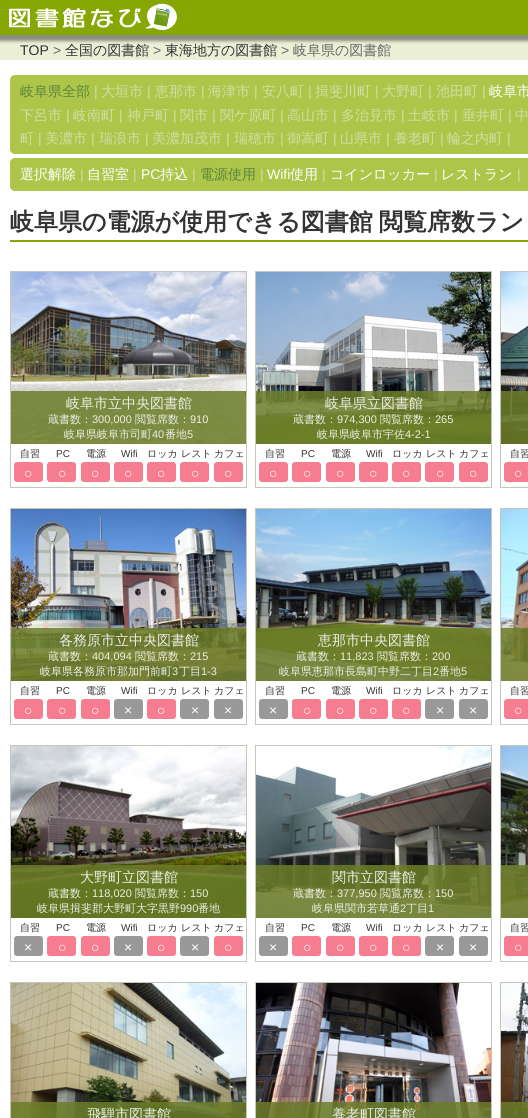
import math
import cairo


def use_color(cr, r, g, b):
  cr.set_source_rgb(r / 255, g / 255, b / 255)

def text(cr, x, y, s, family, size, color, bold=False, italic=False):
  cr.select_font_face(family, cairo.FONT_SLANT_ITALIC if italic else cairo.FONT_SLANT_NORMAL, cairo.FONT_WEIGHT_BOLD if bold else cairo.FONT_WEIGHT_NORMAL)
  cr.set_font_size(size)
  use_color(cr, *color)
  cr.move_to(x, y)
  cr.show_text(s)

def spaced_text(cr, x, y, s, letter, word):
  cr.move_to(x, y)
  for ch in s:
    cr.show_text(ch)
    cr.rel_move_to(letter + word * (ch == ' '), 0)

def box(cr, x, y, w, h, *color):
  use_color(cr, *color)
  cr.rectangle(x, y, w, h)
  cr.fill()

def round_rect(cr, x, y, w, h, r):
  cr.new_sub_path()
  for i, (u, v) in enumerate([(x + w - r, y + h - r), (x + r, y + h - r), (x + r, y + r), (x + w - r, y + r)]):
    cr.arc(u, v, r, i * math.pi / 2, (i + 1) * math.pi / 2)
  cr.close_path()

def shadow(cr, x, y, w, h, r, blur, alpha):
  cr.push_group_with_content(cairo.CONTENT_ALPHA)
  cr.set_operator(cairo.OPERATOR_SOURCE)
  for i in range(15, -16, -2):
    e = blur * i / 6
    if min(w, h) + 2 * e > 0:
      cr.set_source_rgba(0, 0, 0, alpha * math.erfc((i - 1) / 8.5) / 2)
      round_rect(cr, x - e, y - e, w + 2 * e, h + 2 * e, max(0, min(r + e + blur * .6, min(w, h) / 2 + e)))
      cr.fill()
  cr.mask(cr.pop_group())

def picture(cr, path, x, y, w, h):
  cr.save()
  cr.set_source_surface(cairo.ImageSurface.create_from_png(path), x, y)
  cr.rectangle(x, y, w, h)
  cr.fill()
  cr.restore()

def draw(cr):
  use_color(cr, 255, 255, 255)
  cr.paint()
  box(cr, 0, 35, 528, 25, 234, 239, 214)
  use_color(cr, 0, 0, 0)
  shadow(cr, -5, -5, 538, 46, 0, 1.5, 0.4)
  box(cr, 0, 0, 528, 35, 134, 167, 2)
  picture(cr, "img_01.png", 8, 0, 172, 32)
  use_color(cr, 173, 198, 74)
  round_rect(cr, 10, 75, 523, 79, 5)
  cr.fill()
  round_rect(cr, 10, 158, 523, 33, 5)
  cr.fill()
  box(cr, 10, 240, 518, 2, 134, 167, 2)
  cr.rectangle(10.5, 271.5, 236, 216)
  use_color(cr, 195, 199, 186)
  cr.set_line_width(1)
  cr.stroke()
  picture(cr, "img_02.png", 11, 272, 235, 172)
  cr.set_source_rgba(0.424, 0.49, 0.157, 0.85)
  cr.rectangle(11, 391, 235, 53)
  cr.fill()
  use_color(cr, 246, 125, 144)
  round_rect(cr, 14, 462, 29, 20, 3)
  cr.fill()
  round_rect(cr, 47, 462, 29, 20, 3)
  cr.fill()
  round_rect(cr, 81, 462, 29, 20, 3)
  cr.fill()
  round_rect(cr, 114, 462, 29, 20, 3)
  cr.fill()
  round_rect(cr, 147, 462, 29, 20, 3)
  cr.fill()
  round_rect(cr, 180, 462, 29, 20, 3)
  cr.fill()
  round_rect(cr, 214, 462, 29, 20, 3)
  cr.fill()
  cr.rectangle(255.5, 271.5, 236, 216)
  use_color(cr, 195, 199, 186)
  cr.stroke()
  picture(cr, "img_03.png", 256, 272, 235, 172)
  cr.set_source_rgba(0.424, 0.49, 0.157, 0.85)
  cr.rectangle(256, 391, 235, 53)
  cr.fill()
  use_color(cr, 246, 125, 144)
  round_rect(cr, 259, 462, 29, 20, 3)
  cr.fill()
  round_rect(cr, 292, 462, 29, 20, 3)
  cr.fill()
  round_rect(cr, 326, 462, 29, 20, 3)
  cr.fill()
  round_rect(cr, 359, 462, 29, 20, 3)
  cr.fill()
  round_rect(cr, 392, 462, 29, 20, 3)
  cr.fill()
  round_rect(cr, 425, 462, 29, 20, 3)
  cr.fill()
  round_rect(cr, 459, 462, 29, 20, 3)
  cr.fill()
  cr.rectangle(500.5, 271.5, 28, 216)
  use_color(cr, 195, 199, 186)
  cr.stroke()
  picture(cr, "img_04.png", 501, 272, 27, 172)
  cr.set_source_rgba(0.424, 0.49, 0.157, 0.85)
  cr.rectangle(501, 391, 27, 53)
  cr.fill()
  use_color(cr, 246, 125, 144)
  round_rect(cr, 504, 462, 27, 20, 3)
  cr.fill()
  cr.rectangle(10.5, 508.5, 236, 216)
  use_color(cr, 195, 199, 186)
  cr.stroke()
  picture(cr, "img_05.png", 11, 509, 235, 172)
  cr.set_source_rgba(0.424, 0.49, 0.157, 0.85)
  cr.rectangle(11, 628, 235, 53)
  cr.fill()
  use_color(cr, 246, 125, 144)
  round_rect(cr, 14, 699, 29, 20, 3)
  cr.fill()
  round_rect(cr, 47, 699, 29, 20, 3)
  cr.fill()
  round_rect(cr, 81, 699, 29, 20, 3)
  cr.fill()
  use_color(cr, 153, 153, 153)
  round_rect(cr, 114, 699, 29, 20, 3)
  cr.fill()
  use_color(cr, 246, 125, 144)
  round_rect(cr, 147, 699, 29, 20, 3)
  cr.fill()
  use_color(cr, 153, 153, 153)
  round_rect(cr, 180, 699, 29, 20, 3)
  cr.fill()
  round_rect(cr, 214, 699, 29, 20, 3)
  cr.fill()
  cr.rectangle(255.5, 508.5, 236, 216)
  use_color(cr, 195, 199, 186)
  cr.stroke()
  picture(cr, "img_06.png", 256, 509, 235, 172)
  cr.set_source_rgba(0.424, 0.49, 0.157, 0.85)
  cr.rectangle(256, 628, 235, 53)
  cr.fill()
  use_color(cr, 153, 153, 153)
  round_rect(cr, 259, 699, 29, 20, 3)
  cr.fill()
  use_color(cr, 246, 125, 144)
  round_rect(cr, 292, 699, 29, 20, 3)
  cr.fill()
  round_rect(cr, 326, 699, 29, 20, 3)
  cr.fill()
  round_rect(cr, 359, 699, 29, 20, 3)
  cr.fill()
  round_rect(cr, 392, 699, 29, 20, 3)
  cr.fill()
  use_color(cr, 153, 153, 153)
  round_rect(cr, 425, 699, 29, 20, 3)
  cr.fill()
  round_rect(cr, 459, 699, 29, 20, 3)
  cr.fill()
  cr.rectangle(500.5, 508.5, 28, 216)
  use_color(cr, 195, 199, 186)
  cr.stroke()
  picture(cr, "img_07.png", 501, 509, 27, 172)
  cr.set_source_rgba(0.424, 0.49, 0.157, 0.85)
  cr.rectangle(501, 628, 27, 53)
  cr.fill()
  use_color(cr, 246, 125, 144)
  round_rect(cr, 504, 699, 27, 20, 3)
  cr.fill()
  cr.rectangle(10.5, 745.5, 236, 216)
  use_color(cr, 195, 199, 186)
  cr.stroke()
  picture(cr, "img_08.png", 11, 746, 235, 172)
  cr.set_source_rgba(0.424, 0.49, 0.157, 0.85)
  cr.rectangle(11, 865, 235, 53)
  cr.fill()
  use_color(cr, 153, 153, 153)
  round_rect(cr, 14, 936, 29, 20, 3)
  cr.fill()
  use_color(cr, 246, 125, 144)
  round_rect(cr, 47, 936, 29, 20, 3)
  cr.fill()
  round_rect(cr, 81, 936, 29, 20, 3)
  cr.fill()
  use_color(cr, 153, 153, 153)
  round_rect(cr, 114, 936, 29, 20, 3)
  cr.fill()
  use_color(cr, 246, 125, 144)
  round_rect(cr, 147, 936, 29, 20, 3)
  cr.fill()
  use_color(cr, 153, 153, 153)
  round_rect(cr, 180, 936, 29, 20, 3)
  cr.fill()
  use_color(cr, 246, 125, 144)
  round_rect(cr, 214, 936, 29, 20, 3)
  cr.fill()
  cr.rectangle(255.5, 745.5, 236, 216)
  use_color(cr, 195, 199, 186)
  cr.stroke()
  picture(cr, "img_09.png", 256, 746, 235, 172)
  cr.set_source_rgba(0.424, 0.49, 0.157, 0.85)
  cr.rectangle(256, 865, 235, 53)
  cr.fill()
  use_color(cr, 153, 153, 153)
  round_rect(cr, 259, 936, 29, 20, 3)
  cr.fill()
  use_color(cr, 246, 125, 144)
  round_rect(cr, 292, 936, 29, 20, 3)
  cr.fill()
  round_rect(cr, 326, 936, 29, 20, 3)
  cr.fill()
  round_rect(cr, 359, 936, 29, 20, 3)
  cr.fill()
  round_rect(cr, 392, 936, 29, 20, 3)
  cr.fill()
  use_color(cr, 153, 153, 153)
  round_rect(cr, 425, 936, 29, 20, 3)
  cr.fill()
  round_rect(cr, 459, 936, 29, 20, 3)
  cr.fill()
  cr.rectangle(500.5, 745.5, 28, 216)
  use_color(cr, 195, 199, 186)
  cr.stroke()
  picture(cr, "img_10.png", 501, 746, 27, 172)
  cr.set_source_rgba(0.424, 0.49, 0.157, 0.85)
  cr.rectangle(501, 865, 27, 53)
  cr.fill()
  use_color(cr, 246, 125, 144)
  round_rect(cr, 504, 936, 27, 20, 3)
  cr.fill()
  cr.rectangle(10.5, 982.5, 236, 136)
  use_color(cr, 195, 199, 186)
  cr.stroke()
  picture(cr, "img_11.png", 11, 983, 235, 135)
  cr.set_source_rgba(0.424, 0.49, 0.157, 0.85)
  cr.rectangle(11, 1102, 235, 16)
  cr.fill()
  cr.rectangle(255.5, 982.5, 236, 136)
  use_color(cr, 195, 199, 186)
  cr.stroke()
  picture(cr, "img_12.png", 256, 983, 235, 135)
  cr.set_source_rgba(0.424, 0.49, 0.157, 0.85)
  cr.rectangle(256, 1102, 235, 16)
  cr.fill()
  cr.rectangle(500.5, 982.5, 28, 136)
  use_color(cr, 195, 199, 186)
  cr.stroke()
  picture(cr, "img_13.png", 501, 983, 27, 135)
  cr.set_source_rgba(0.424, 0.49, 0.157, 0.85)
  cr.rectangle(501, 1102, 27, 16)
  cr.fill()
  text(cr, 20, 55, "TOP", "Liberation Sans", 14, (51, 51, 51))
  text(cr, 53, 55, ">", "Liberation Sans", 14, (102, 102, 102))
  text(cr, 65, 55, "全国の図書館", "WenQuanYi Zen Hei Medium", 14, (51, 51, 51))
  text(cr, 153, 55, ">", "Liberation Sans", 14, (102, 102, 102))
  text(cr, 165, 55, "東海地方の図書館", "WenQuanYi Zen Hei Medium", 14, (51, 51, 51))
  text(cr, 281, 55, ">", "Liberation Sans", 14, (102, 102, 102))
  text(cr, 293, 55, "岐阜県の図書館", "WenQuanYi Zen Hei Medium", 14, (102, 102, 102))
  text(cr, 20, 96, "岐阜県全部", "WenQuanYi Zen Hei Medium", 14, (91, 131, 61))
  text(cr, 94, 96, "|", "Liberation Sans", 14, (210, 221, 165))
  text(cr, 101, 96, "大垣市", "WenQuanYi Zen Hei Medium", 14, (210, 221, 165))
  text(cr, 147, 96, "|", "Liberation Sans", 14, (210, 221, 165))
  text(cr, 155, 96, "恵那市", "WenQuanYi Zen Hei Medium", 14, (210, 221, 165))
  text(cr, 201, 96, "|", "Liberation Sans", 14, (210, 221, 165))
  text(cr, 208, 96, "海津市", "WenQuanYi Zen Hei Medium", 14, (210, 221, 165))
  text(cr, 254, 96, "|", "Liberation Sans", 14, (210, 221, 165))
  text(cr, 262, 96, "安八町", "WenQuanYi Zen Hei Medium", 14, (210, 221, 165))
  text(cr, 308, 96, "|", "Liberation Sans", 14, (210, 221, 165))
  text(cr, 315, 96, "揖斐川町", "WenQuanYi Zen Hei Medium", 14, (210, 221, 165))
  text(cr, 375, 96, "|", "Liberation Sans", 14, (210, 221, 165))
  text(cr, 382, 96, "大野町", "WenQuanYi Zen Hei Medium", 14, (210, 221, 165))
  text(cr, 428, 96, "|", "Liberation Sans", 14, (210, 221, 165))
  text(cr, 436, 96, "池田町", "WenQuanYi Zen Hei Medium", 14, (210, 221, 165))
  text(cr, 482, 96, "|", "Liberation Sans", 14, (210, 221, 165))
  text(cr, 489, 96, "岐阜市", "WenQuanYi Zen Hei Medium", 14, (255, 255, 255))
  text(cr, 20, 120, "下呂市", "WenQuanYi Zen Hei Medium", 14, (210, 221, 165))
  text(cr, 66, 120, "|", "Liberation Sans", 14, (210, 221, 165))
  text(cr, 73, 120, "岐南町", "WenQuanYi Zen Hei Medium", 14, (210, 221, 165))
  text(cr, 119, 120, "|", "Liberation Sans", 14, (210, 221, 165))
  text(cr, 127, 120, "神戸町", "WenQuanYi Zen Hei Medium", 14, (210, 221, 165))
  text(cr, 173, 120, "|", "Liberation Sans", 14, (210, 221, 165))
  text(cr, 180, 120, "関市", "WenQuanYi Zen Hei Medium", 14, (210, 221, 165))
  text(cr, 212, 120, "|", "Liberation Sans", 14, (210, 221, 165))
  text(cr, 220, 120, "関ケ原町", "WenQuanYi Zen Hei Medium", 14, (210, 221, 165))
  text(cr, 280, 120, "|", "Liberation Sans", 14, (210, 221, 165))
  text(cr, 287, 120, "高山市", "WenQuanYi Zen Hei Medium", 14, (210, 221, 165))
  text(cr, 333, 120, "|", "Liberation Sans", 14, (210, 221, 165))
  text(cr, 341, 120, "多治見市", "WenQuanYi Zen Hei Medium", 14, (210, 221, 165))
  text(cr, 401, 120, "|", "Liberation Sans", 14, (210, 221, 165))
  text(cr, 408, 120, "土岐市", "WenQuanYi Zen Hei Medium", 14, (210, 221, 165))
  text(cr, 454, 120, "|", "Liberation Sans", 14, (210, 221, 165))
  text(cr, 462, 120, "垂井町", "WenQuanYi Zen Hei Medium", 14, (210, 221, 165))
  text(cr, 508, 120, "|", "Liberation Sans", 14, (210, 221, 165))
  text(cr, 515, 120, "中", "WenQuanYi Zen Hei Medium", 14, (210, 221, 165))
  text(cr, 20, 143, "町", "WenQuanYi Zen Hei Medium", 14, (210, 221, 165))
  text(cr, 38, 143, "|", "Liberation Sans", 14, (210, 221, 165))
  text(cr, 45, 143, "美濃市", "WenQuanYi Zen Hei Medium", 14, (210, 221, 165))
  text(cr, 91, 143, "|", "Liberation Sans", 14, (210, 221, 165))
  text(cr, 99, 143, "瑞浪市", "WenQuanYi Zen Hei Medium", 14, (210, 221, 165))
  text(cr, 145, 143, "|", "Liberation Sans", 14, (210, 221, 165))
  text(cr, 152, 143, "美濃加茂市", "WenQuanYi Zen Hei Medium", 14, (210, 221, 165))
  text(cr, 226, 143, "|", "Liberation Sans", 14, (210, 221, 165))
  text(cr, 234, 143, "瑞穂市", "WenQuanYi Zen Hei Medium", 14, (210, 221, 165))
  text(cr, 280, 143, "|", "Liberation Sans", 14, (210, 221, 165))
  text(cr, 287, 143, "御嵩町", "WenQuanYi Zen Hei Medium", 14, (210, 221, 165))
  text(cr, 333, 143, "|", "Liberation Sans", 14, (210, 221, 165))
  text(cr, 340, 143, "山県市", "WenQuanYi Zen Hei Medium", 14, (210, 221, 165))
  text(cr, 386, 143, "|", "Liberation Sans", 14, (210, 221, 165))
  text(cr, 394, 143, "養老町", "WenQuanYi Zen Hei Medium", 14, (210, 221, 165))
  text(cr, 440, 143, "|", "Liberation Sans", 14, (210, 221, 165))
  text(cr, 447, 143, "輪之内町", "WenQuanYi Zen Hei Medium", 14, (210, 221, 165))
  text(cr, 507, 143, "|", "Liberation Sans", 14, (210, 221, 165))
  text(cr, 20, 179, "選択解除", "WenQuanYi Zen Hei Medium", 14, (255, 255, 255))
  text(cr, 80, 179, "|", "Liberation Sans", 14, (210, 221, 165))
  text(cr, 87, 179, "自習室", "WenQuanYi Zen Hei Medium", 14, (255, 255, 255))
  text(cr, 133, 179, "|", "Liberation Sans", 14, (210, 221, 165))
  text(cr, 141, 179, "PC", "Liberation Sans", 14, (255, 255, 255))
  text(cr, 160, 179, "持込", "WenQuanYi Zen Hei Medium", 14, (255, 255, 255))
  text(cr, 192, 179, "|", "Liberation Sans", 14, (210, 221, 165))
  text(cr, 200, 179, "電源使用", "WenQuanYi Zen Hei Medium", 14, (91, 131, 61))
  text(cr, 260, 179, "|", "Liberation Sans", 14, (210, 221, 165))
  text(cr, 267, 179, "Wifi", "Liberation Sans", 14, (255, 255, 255))
  text(cr, 290, 179, "使用", "WenQuanYi Zen Hei Medium", 14, (255, 255, 255))
  text(cr, 322, 179, "|", "Liberation Sans", 14, (210, 221, 165))
  text(cr, 330, 179, "コインロッカー", "WenQuanYi Zen Hei Medium", 14, (255, 255, 255))
  text(cr, 434, 179, "|", "Liberation Sans", 14, (210, 221, 165))
  text(cr, 441, 179, "レストラン", "WenQuanYi Zen Hei Medium", 14, (255, 255, 255))
  text(cr, 517, 179, "|", "Liberation Sans", 14, (210, 221, 165))
  cr.select_font_face("WenQuanYi Zen Hei", cairo.FONT_SLANT_NORMAL, cairo.FONT_WEIGHT_BOLD)
  cr.set_font_size(24)
  use_color(cr, 51, 51, 51)
  spaced_text(cr, 10, 230, "岐阜県の電源が使用できる図書館 閲覧席数ラン", 0, -1)
  text(cr, 66, 408, "岐阜市立中央図書館", "WenQuanYi Zen Hei Medium", 14, (235, 238, 227))
  text(cr, 48, 423, "蔵書数：", "WenQuanYi Zen Hei Medium", 11, (235, 238, 227))
  text(cr, 92, 423, "300,000", "Liberation Sans", 11, (235, 238, 227))
  text(cr, 135, 423, "閲覧席数：", "WenQuanYi Zen Hei Medium", 11, (235, 238, 227))
  text(cr, 190, 423, "910", "Liberation Sans", 11, (235, 238, 227))
  text(cr, 64, 438, "岐阜県岐阜市司町", "WenQuanYi Zen Hei Medium", 11, (235, 238, 227))
  text(cr, 152, 438, "40", "Liberation Sans", 11, (235, 238, 227))
  text(cr, 165, 438, "番地", "WenQuanYi Zen Hei Medium", 11, (235, 238, 227))
  text(cr, 187, 438, "5", "Liberation Sans", 11, (235, 238, 227))
  text(cr, 20, 457, "自習", "WenQuanYi Zen Hei Medium", 10, (51, 51, 51))
  text(cr, 56, 457, "PC", "Liberation Sans", 10, (51, 51, 51))
  text(cr, 86, 457, "電源", "WenQuanYi Zen Hei Medium", 10, (51, 51, 51))
  text(cr, 121, 457, "Wifi", "Liberation Sans", 10, (51, 51, 51))
  text(cr, 147, 457, "ロッカ", "WenQuanYi Zen Hei Medium", 10, (51, 51, 51))
  text(cr, 181, 457, "レスト", "WenQuanYi Zen Hei Medium", 10, (51, 51, 51))
  text(cr, 214, 457, "カフェ", "WenQuanYi Zen Hei Medium", 10, (51, 51, 51))
  text(cr, 24, 478, "○", "Liberation Sans", 14, (255, 255, 255))
  text(cr, 58, 478, "○", "Liberation Sans", 14, (255, 255, 255))
  text(cr, 91, 478, "○", "Liberation Sans", 14, (255, 255, 255))
  text(cr, 124, 478, "○", "Liberation Sans", 14, (255, 255, 255))
  text(cr, 157, 478, "○", "Liberation Sans", 14, (255, 255, 255))
  text(cr, 191, 478, "○", "Liberation Sans", 14, (255, 255, 255))
  text(cr, 224, 478, "○", "Liberation Sans", 14, (255, 255, 255))
  text(cr, 325, 408, "岐阜県立図書館", "WenQuanYi Zen Hei Medium", 14, (235, 238, 227))
  text(cr, 293, 423, "蔵書数：", "WenQuanYi Zen Hei Medium", 11, (235, 238, 227))
  text(cr, 337, 423, "974,300", "Liberation Sans", 11, (235, 238, 227))
  text(cr, 380, 423, "閲覧席数：", "WenQuanYi Zen Hei Medium", 11, (235, 238, 227))
  text(cr, 435, 423, "265", "Liberation Sans", 11, (235, 238, 227))
  text(cr, 317, 438, "岐阜県岐阜市宇佐", "WenQuanYi Zen Hei Medium", 11, (235, 238, 227))
  text(cr, 405, 438, "4-2-1", "Liberation Sans", 11, (235, 238, 227))
  text(cr, 265, 457, "自習", "WenQuanYi Zen Hei Medium", 10, (51, 51, 51))
  text(cr, 301, 457, "PC", "Liberation Sans", 10, (51, 51, 51))
  text(cr, 331, 457, "電源", "WenQuanYi Zen Hei Medium", 10, (51, 51, 51))
  text(cr, 366, 457, "Wifi", "Liberation Sans", 10, (51, 51, 51))
  text(cr, 392, 457, "ロッカ", "WenQuanYi Zen Hei Medium", 10, (51, 51, 51))
  text(cr, 426, 457, "レスト", "WenQuanYi Zen Hei Medium", 10, (51, 51, 51))
  text(cr, 459, 457, "カフェ", "WenQuanYi Zen Hei Medium", 10, (51, 51, 51))
  text(cr, 269, 478, "○", "Liberation Sans", 14, (255, 255, 255))
  text(cr, 303, 478, "○", "Liberation Sans", 14, (255, 255, 255))
  text(cr, 336, 478, "○", "Liberation Sans", 14, (255, 255, 255))
  text(cr, 369, 478, "○", "Liberation Sans", 14, (255, 255, 255))
  text(cr, 402, 478, "○", "Liberation Sans", 14, (255, 255, 255))
  text(cr, 436, 478, "○", "Liberation Sans", 14, (255, 255, 255))
  text(cr, 469, 478, "○", "Liberation Sans", 14, (255, 255, 255))
  text(cr, 510, 457, "自習", "WenQuanYi Zen Hei Medium", 10, (51, 51, 51))
  text(cr, 514, 478, "○", "Liberation Sans", 14, (255, 255, 255))
  text(cr, 59, 645, "各務原市立中央図書館", "WenQuanYi Zen Hei Medium", 14, (235, 238, 227))
  text(cr, 48, 660, "蔵書数：", "WenQuanYi Zen Hei Medium", 11, (235, 238, 227))
  text(cr, 92, 660, "404,094", "Liberation Sans", 11, (235, 238, 227))
  text(cr, 135, 660, "閲覧席数：", "WenQuanYi Zen Hei Medium", 11, (235, 238, 227))
  text(cr, 190, 660, "215", "Liberation Sans", 11, (235, 238, 227))
  text(cr, 40, 675, "岐阜県各務原市那加門前町", "WenQuanYi Zen Hei Medium", 11, (235, 238, 227))
  text(cr, 172, 675, "3", "Liberation Sans", 11, (235, 238, 227))
  text(cr, 179, 675, "丁目", "WenQuanYi Zen Hei Medium", 11, (235, 238, 227))
  text(cr, 201, 675, "1-3", "Liberation Sans", 11, (235, 238, 227))
  text(cr, 20, 694, "自習", "WenQuanYi Zen Hei Medium", 10, (51, 51, 51))
  text(cr, 56, 694, "PC", "Liberation Sans", 10, (51, 51, 51))
  text(cr, 86, 694, "電源", "WenQuanYi Zen Hei Medium", 10, (51, 51, 51))
  text(cr, 121, 694, "Wifi", "Liberation Sans", 10, (51, 51, 51))
  text(cr, 147, 694, "ロッカ", "WenQuanYi Zen Hei Medium", 10, (51, 51, 51))
  text(cr, 181, 694, "レスト", "WenQuanYi Zen Hei Medium", 10, (51, 51, 51))
  text(cr, 214, 694, "カフェ", "WenQuanYi Zen Hei Medium", 10, (51, 51, 51))
  text(cr, 24, 715, "○", "Liberation Sans", 14, (255, 255, 255))
  text(cr, 58, 715, "○", "Liberation Sans", 14, (255, 255, 255))
  text(cr, 91, 715, "○", "Liberation Sans", 14, (255, 255, 255))
  text(cr, 124, 715, "×", "Liberation Sans", 14, (255, 255, 255))
  text(cr, 157, 715, "○", "Liberation Sans", 14, (255, 255, 255))
  text(cr, 191, 715, "×", "Liberation Sans", 14, (255, 255, 255))
  text(cr, 224, 715, "×", "Liberation Sans", 14, (255, 255, 255))
  text(cr, 318, 645, "恵那市中央図書館", "WenQuanYi Zen Hei Medium", 14, (235, 238, 227))
  text(cr, 296, 660, "蔵書数：", "WenQuanYi Zen Hei Medium", 11, (235, 238, 227))
  text(cr, 340, 660, "11,823", "Liberation Sans", 11, (235, 238, 227))
  text(cr, 377, 660, "閲覧席数：", "WenQuanYi Zen Hei Medium", 11, (235, 238, 227))
  text(cr, 432, 660, "200", "Liberation Sans", 11, (235, 238, 227))
  text(cr, 279, 675, "岐阜県恵那市長島町中野二丁目", "WenQuanYi Zen Hei Medium", 11, (235, 238, 227))
  text(cr, 433, 675, "2", "Liberation Sans", 11, (235, 238, 227))
  text(cr, 439, 675, "番地", "WenQuanYi Zen Hei Medium", 11, (235, 238, 227))
  text(cr, 461, 675, "5", "Liberation Sans", 11, (235, 238, 227))
  text(cr, 265, 694, "自習", "WenQuanYi Zen Hei Medium", 10, (51, 51, 51))
  text(cr, 301, 694, "PC", "Liberation Sans", 10, (51, 51, 51))
  text(cr, 331, 694, "電源", "WenQuanYi Zen Hei Medium", 10, (51, 51, 51))
  text(cr, 366, 694, "Wifi", "Liberation Sans", 10, (51, 51, 51))
  text(cr, 392, 694, "ロッカ", "WenQuanYi Zen Hei Medium", 10, (51, 51, 51))
  text(cr, 426, 694, "レスト", "WenQuanYi Zen Hei Medium", 10, (51, 51, 51))
  text(cr, 459, 694, "カフェ", "WenQuanYi Zen Hei Medium", 10, (51, 51, 51))
  text(cr, 269, 715, "×", "Liberation Sans", 14, (255, 255, 255))
  text(cr, 303, 715, "○", "Liberation Sans", 14, (255, 255, 255))
  text(cr, 336, 715, "○", "Liberation Sans", 14, (255, 255, 255))
  text(cr, 369, 715, "○", "Liberation Sans", 14, (255, 255, 255))
  text(cr, 402, 715, "○", "Liberation Sans", 14, (255, 255, 255))
  text(cr, 436, 715, "×", "Liberation Sans", 14, (255, 255, 255))
  text(cr, 469, 715, "×", "Liberation Sans", 14, (255, 255, 255))
  text(cr, 510, 694, "自習", "WenQuanYi Zen Hei Medium", 10, (51, 51, 51))
  text(cr, 514, 715, "○", "Liberation Sans", 14, (255, 255, 255))
  text(cr, 80, 882, "大野町立図書館", "WenQuanYi Zen Hei Medium", 14, (235, 238, 227))
  text(cr, 48, 897, "蔵書数：", "WenQuanYi Zen Hei Medium", 11, (235, 238, 227))
  text(cr, 92, 897, "118,020", "Liberation Sans", 11, (235, 238, 227))
  text(cr, 135, 897, "閲覧席数：", "WenQuanYi Zen Hei Medium", 11, (235, 238, 227))
  text(cr, 190, 897, "150", "Liberation Sans", 11, (235, 238, 227))
  text(cr, 37, 912, "岐阜県揖斐郡大野町大字黒野", "WenQuanYi Zen Hei Medium", 11, (235, 238, 227))
  text(cr, 180, 912, "990", "Liberation Sans", 11, (235, 238, 227))
  text(cr, 198, 912, "番地", "WenQuanYi Zen Hei Medium", 11, (235, 238, 227))
  text(cr, 20, 931, "自習", "WenQuanYi Zen Hei Medium", 10, (51, 51, 51))
  text(cr, 56, 931, "PC", "Liberation Sans", 10, (51, 51, 51))
  text(cr, 86, 931, "電源", "WenQuanYi Zen Hei Medium", 10, (51, 51, 51))
  text(cr, 121, 931, "Wifi", "Liberation Sans", 10, (51, 51, 51))
  text(cr, 147, 931, "ロッカ", "WenQuanYi Zen Hei Medium", 10, (51, 51, 51))
  text(cr, 181, 931, "レスト", "WenQuanYi Zen Hei Medium", 10, (51, 51, 51))
  text(cr, 214, 931, "カフェ", "WenQuanYi Zen Hei Medium", 10, (51, 51, 51))
  text(cr, 24, 952, "×", "Liberation Sans", 14, (255, 255, 255))
  text(cr, 58, 952, "○", "Liberation Sans", 14, (255, 255, 255))
  text(cr, 91, 952, "○", "Liberation Sans", 14, (255, 255, 255))
  text(cr, 124, 952, "×", "Liberation Sans", 14, (255, 255, 255))
  text(cr, 157, 952, "○", "Liberation Sans", 14, (255, 255, 255))
  text(cr, 191, 952, "×", "Liberation Sans", 14, (255, 255, 255))
  text(cr, 224, 952, "○", "Liberation Sans", 14, (255, 255, 255))
  text(cr, 332, 882, "関市立図書館", "WenQuanYi Zen Hei Medium", 14, (235, 238, 227))
  text(cr, 293, 897, "蔵書数：", "WenQuanYi Zen Hei Medium", 11, (235, 238, 227))
  text(cr, 337, 897, "377,950", "Liberation Sans", 11, (235, 238, 227))
  text(cr, 380, 897, "閲覧席数：", "WenQuanYi Zen Hei Medium", 11, (235, 238, 227))
  text(cr, 435, 897, "150", "Liberation Sans", 11, (235, 238, 227))
  text(cr, 312, 912, "岐阜県関市若草通", "WenQuanYi Zen Hei Medium", 11, (235, 238, 227))
  text(cr, 400, 912, "2", "Liberation Sans", 11, (235, 238, 227))
  text(cr, 406, 912, "丁目", "WenQuanYi Zen Hei Medium", 11, (235, 238, 227))
  text(cr, 428, 912, "1", "Liberation Sans", 11, (235, 238, 227))
  text(cr, 265, 931, "自習", "WenQuanYi Zen Hei Medium", 10, (51, 51, 51))
  text(cr, 301, 931, "PC", "Liberation Sans", 10, (51, 51, 51))
  text(cr, 331, 931, "電源", "WenQuanYi Zen Hei Medium", 10, (51, 51, 51))
  text(cr, 366, 931, "Wifi", "Liberation Sans", 10, (51, 51, 51))
  text(cr, 392, 931, "ロッカ", "WenQuanYi Zen Hei Medium", 10, (51, 51, 51))
  text(cr, 426, 931, "レスト", "WenQuanYi Zen Hei Medium", 10, (51, 51, 51))
  text(cr, 459, 931, "カフェ", "WenQuanYi Zen Hei Medium", 10, (51, 51, 51))
  text(cr, 269, 952, "×", "Liberation Sans", 14, (255, 255, 255))
  text(cr, 303, 952, "○", "Liberation Sans", 14, (255, 255, 255))
  text(cr, 336, 952, "○", "Liberation Sans", 14, (255, 255, 255))
  text(cr, 369, 952, "○", "Liberation Sans", 14, (255, 255, 255))
  text(cr, 402, 952, "○", "Liberation Sans", 14, (255, 255, 255))
  text(cr, 436, 952, "×", "Liberation Sans", 14, (255, 255, 255))
  text(cr, 469, 952, "×", "Liberation Sans", 14, (255, 255, 255))
  text(cr, 510, 931, "自習", "WenQuanYi Zen Hei Medium", 10, (51, 51, 51))
  text(cr, 514, 952, "○", "Liberation Sans", 14, (255, 255, 255))
  text(cr, 87, 1119, "飛騨市図書館", "WenQuanYi Zen Hei Medium", 14, (235, 238, 227))
  text(cr, 332, 1119, "養老町図書館", "WenQuanYi Zen Hei Medium", 14, (235, 238, 227))


surface = cairo.ImageSurface(cairo.FORMAT_RGB24, 528, 1118)
cr = cairo.Context(surface)
options = cairo.FontOptions()
options.set_hint_metrics(cairo.HINT_METRICS_OFF)
options.set_hint_style(cairo.HINT_STYLE_NONE)
cr.set_font_options(options)
cr.set_miter_limit(4)
draw(cr)
surface.write_to_png("out.png")
